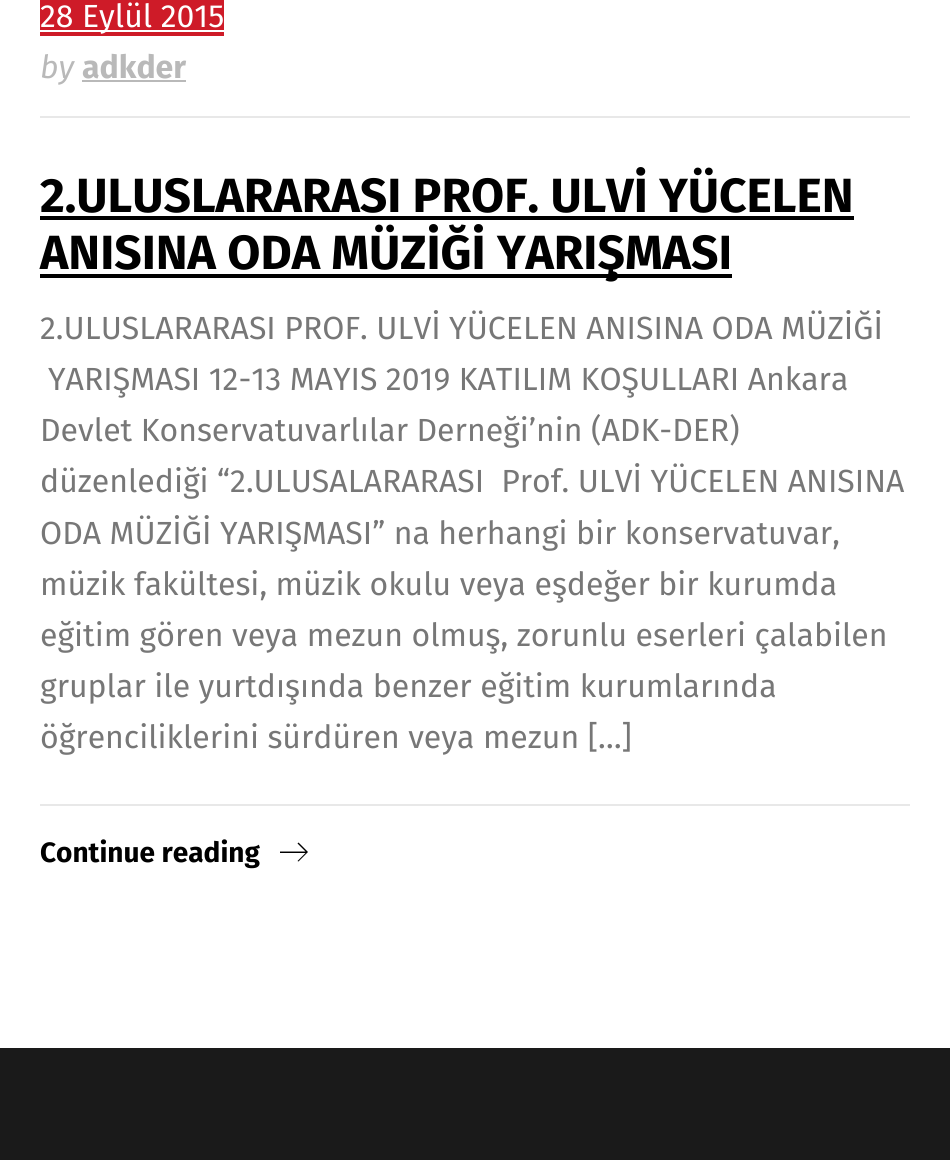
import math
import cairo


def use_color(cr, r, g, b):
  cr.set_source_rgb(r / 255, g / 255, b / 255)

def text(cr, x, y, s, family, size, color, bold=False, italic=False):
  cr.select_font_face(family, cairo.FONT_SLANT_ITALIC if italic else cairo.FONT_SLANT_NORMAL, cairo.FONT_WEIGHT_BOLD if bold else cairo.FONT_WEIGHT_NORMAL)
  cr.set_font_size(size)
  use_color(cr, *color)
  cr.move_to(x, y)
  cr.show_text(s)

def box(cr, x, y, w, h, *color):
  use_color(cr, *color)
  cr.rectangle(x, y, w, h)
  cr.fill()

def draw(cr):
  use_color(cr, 255, 255, 255)
  cr.paint()
  box(cr, 40, 0, 184, 36, 206, 27, 40)
  box(cr, 40, 30, 184, 2, 255, 255, 255)
  box(cr, 82, 80, 104, 2, 185, 185, 185)
  box(cr, 40, 116, 870, 2, 232, 232, 232)
  box(cr, 40, 216, 814, 4, 0, 0, 0)
  box(cr, 40, 274, 692, 4, 0, 0, 0)
  box(cr, 40, 804, 870, 2, 232, 232, 232)
  use_color(cr, 0, 0, 0)
  cr.new_path()
  cr.move_to(298.5, 842.5)
  cr.line_to(297.5, 843.5)
  cr.line_to(305.5, 851.5)
  cr.line_to(280, 851.5)
  cr.line_to(280, 853)
  cr.line_to(305.5, 853)
  cr.line_to(297.5, 861)
  cr.line_to(298.5, 861.5)
  cr.line_to(308, 852)
  cr.close_path()
  cr.fill()
  box(cr, 0, 1048, 950, 112, 26, 26, 26)
  text(cr, 40, 27, "28 Eylül 2015", "Fira Sans", 32, (255, 255, 255))
  text(cr, 40, 78, "by", "Fira Sans", 32, (185, 185, 185), italic=True)
  text(cr, 82, 78, "adkder", "Fira Sans", 32, (185, 185, 185), bold=True)
  text(cr, 40, 212, "2.ULUSLARARASI PROF. ULVİ YÜCELEN", "Fira Sans", 48, (0, 0, 0), bold=True)
  text(cr, 40, 269, "ANISINA ODA MÜZİĞİ YARIŞMASI", "Fira Sans", 48, (0, 0, 0), bold=True)
  text(cr, 40, 339, "2.ULUSLARARASI PROF. ULVİ YÜCELEN ANISINA ODA MÜZİĞİ", "Fira Sans", 32, (119, 119, 119))
  text(cr, 48, 390, "YARIŞMASI 12-13 MAYIS 2019 KATILIM KOŞULLARI Ankara", "Fira Sans", 32, (119, 119, 119))
  text(cr, 40, 441, "Devlet Konservatuvarlılar Derneği’nin (ADK-DER)", "Fira Sans", 32, (119, 119, 119))
  text(cr, 40, 492, "düzenlediği “2.ULUSALARARASI  Prof. ULVİ YÜCELEN ANISINA", "Fira Sans", 32, (119, 119, 119))
  text(cr, 40, 544, "ODA MÜZİĞİ YARIŞMASI” na herhangi bir konservatuvar,", "Fira Sans", 32, (119, 119, 119))
  text(cr, 40, 595, "müzik fakültesi, müzik okulu veya eşdeğer bir kurumda", "Fira Sans", 32, (119, 119, 119))
  text(cr, 40, 646, "eğitim gören veya mezun olmuş, zorunlu eserleri çalabilen", "Fira Sans", 32, (119, 119, 119))
  text(cr, 40, 697, "gruplar ile yurtdışında benzer eğitim kurumlarında", "Fira Sans", 32, (119, 119, 119))
  text(cr, 40, 748, "öğrenciliklerini sürdüren veya mezun […]", "Fira Sans", 32, (119, 119, 119))
  text(cr, 40, 862, "Continue reading", "Fira Sans", 28, (0, 0, 0), bold=True)


surface = cairo.ImageSurface(cairo.FORMAT_RGB24, 950, 1160)
cr = cairo.Context(surface)
options = cairo.FontOptions()
options.set_hint_metrics(cairo.HINT_METRICS_OFF)
options.set_hint_style(cairo.HINT_STYLE_NONE)
cr.set_font_options(options)
cr.set_miter_limit(4)
draw(cr)
surface.write_to_png("out.png")
